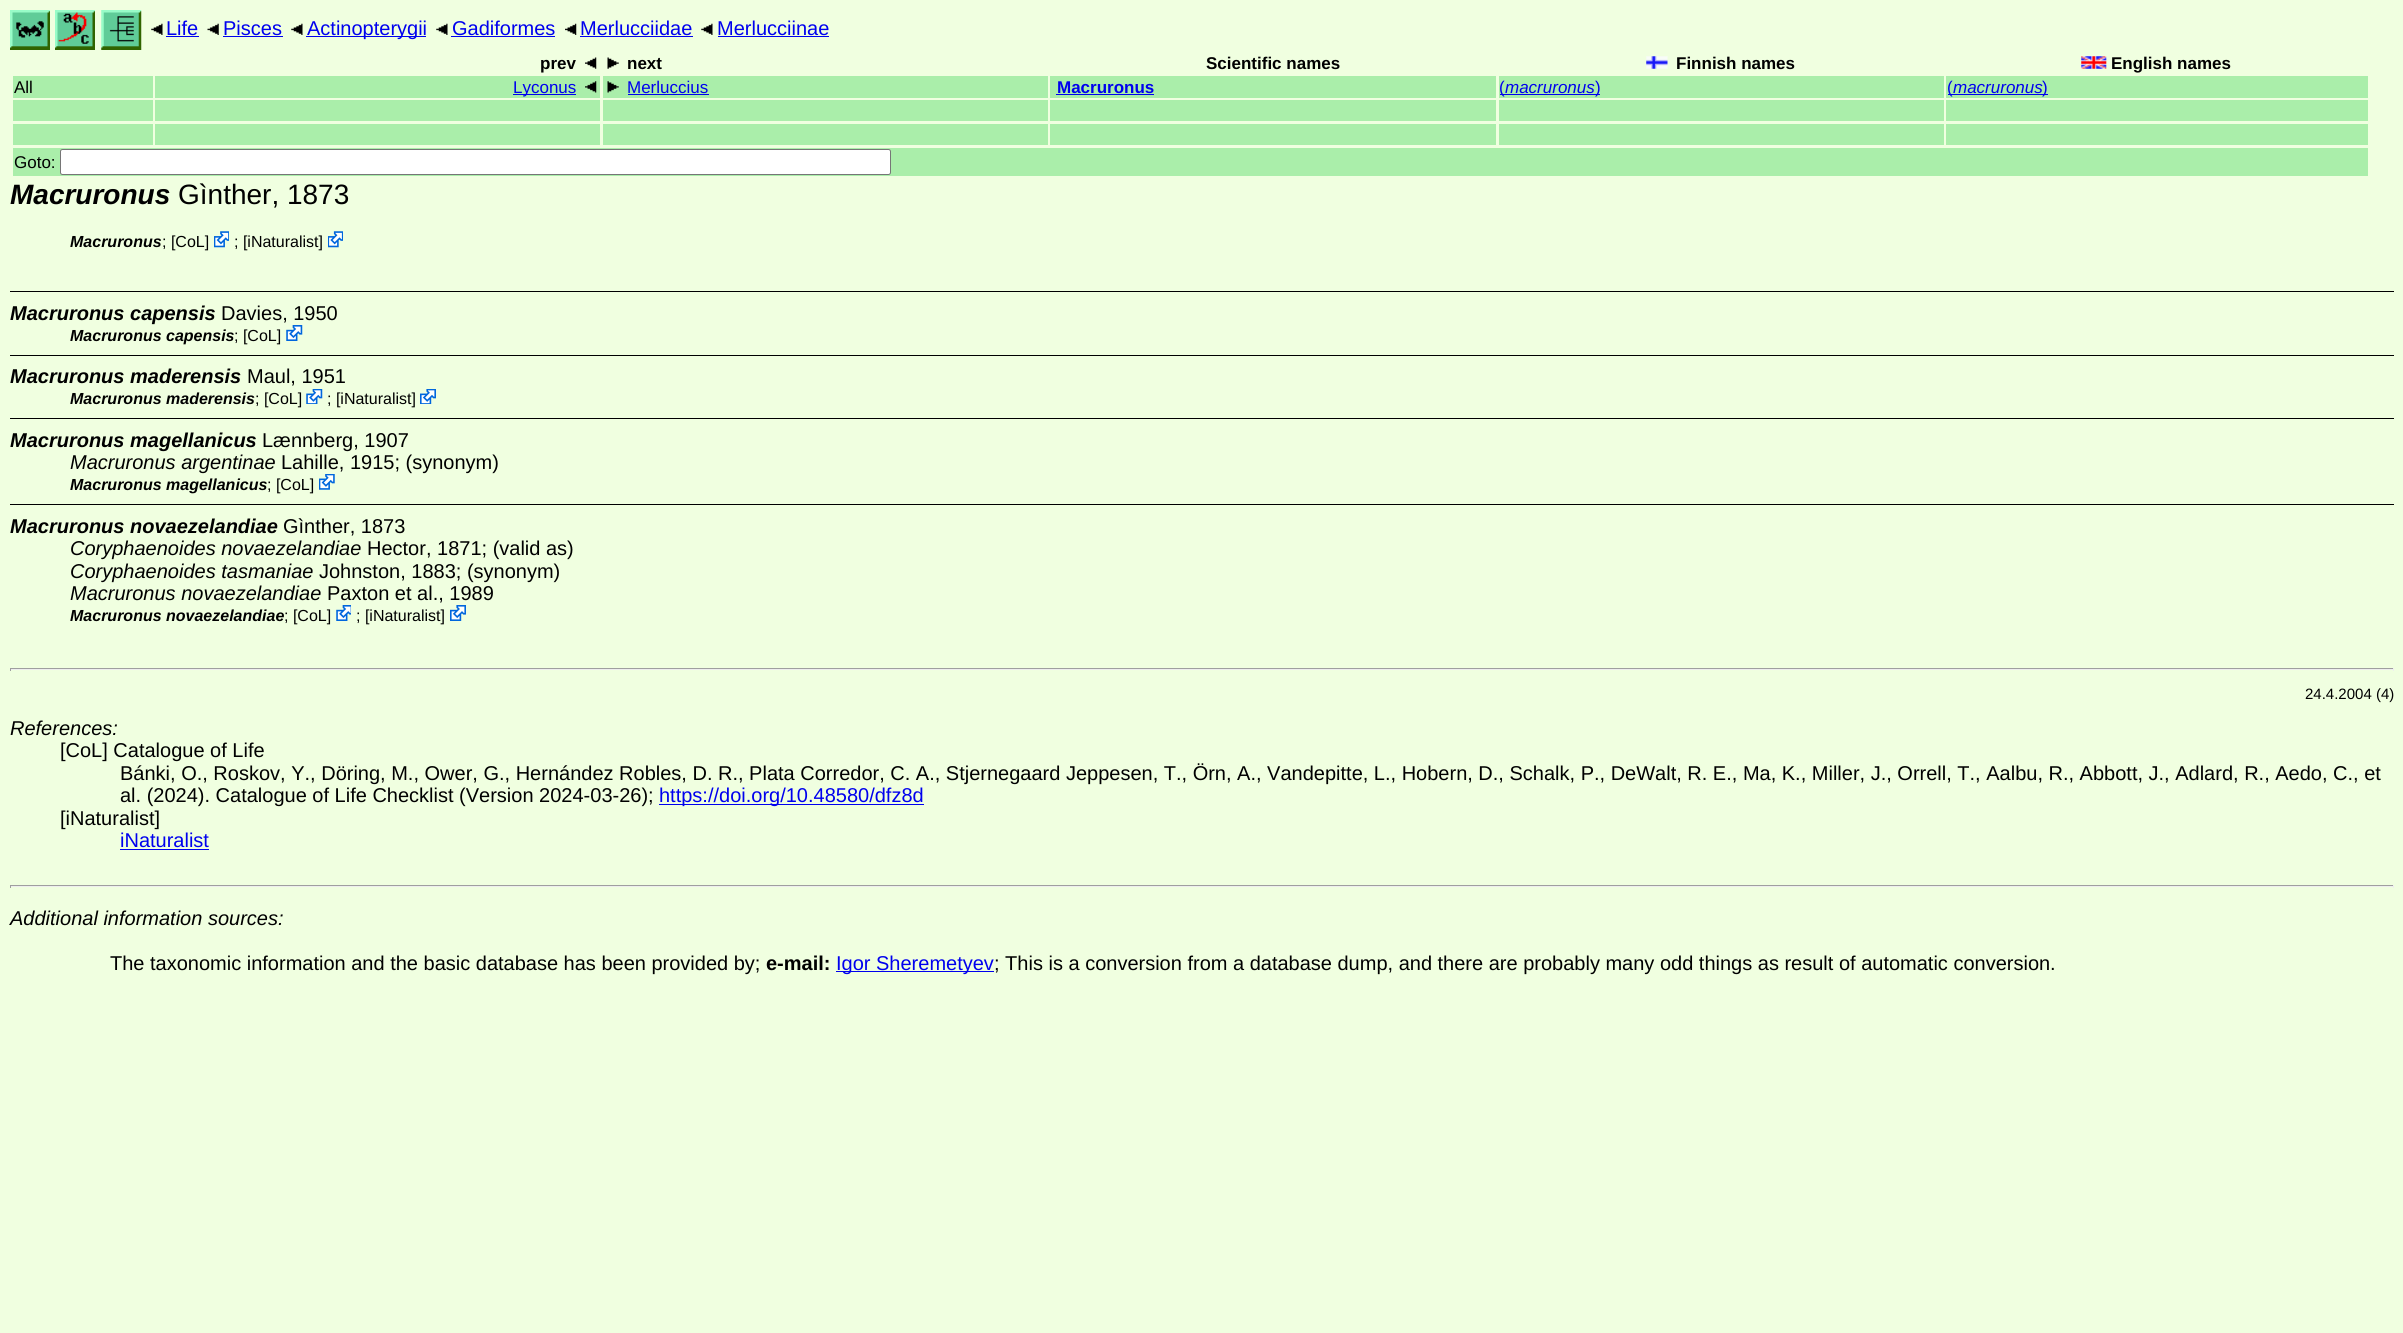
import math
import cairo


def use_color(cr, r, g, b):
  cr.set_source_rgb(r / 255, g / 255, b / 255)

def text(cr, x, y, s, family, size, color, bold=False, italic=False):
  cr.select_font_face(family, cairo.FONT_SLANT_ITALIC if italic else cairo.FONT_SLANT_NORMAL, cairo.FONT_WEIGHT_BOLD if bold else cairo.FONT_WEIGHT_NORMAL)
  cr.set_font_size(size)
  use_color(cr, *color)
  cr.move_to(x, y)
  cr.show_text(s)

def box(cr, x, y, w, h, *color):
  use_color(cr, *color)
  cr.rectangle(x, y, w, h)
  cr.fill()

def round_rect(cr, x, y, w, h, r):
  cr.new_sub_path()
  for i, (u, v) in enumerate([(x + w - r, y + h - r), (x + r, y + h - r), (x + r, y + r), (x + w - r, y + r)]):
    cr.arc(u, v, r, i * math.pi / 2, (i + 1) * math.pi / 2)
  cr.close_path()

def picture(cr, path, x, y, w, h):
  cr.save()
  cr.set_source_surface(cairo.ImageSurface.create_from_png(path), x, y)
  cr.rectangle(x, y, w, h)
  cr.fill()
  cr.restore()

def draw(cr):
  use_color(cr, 240, 255, 224)
  cr.paint()
  picture(cr, "img_01.png", 10, 10, 40, 40)
  picture(cr, "img_02.png", 55, 10, 40, 40)
  picture(cr, "img_03.png", 101, 10, 41, 40)
  picture(cr, "img_04.png", 151, 23, 12, 12)
  box(cr, 166, 36, 33, 1, 0, 0, 238)
  picture(cr, "img_05.png", 207, 23, 12, 12)
  box(cr, 223, 36, 60, 1, 0, 0, 238)
  picture(cr, "img_04.png", 291, 23, 12, 12)
  box(cr, 306, 36, 120, 1, 0, 0, 238)
  picture(cr, "img_04.png", 436, 23, 12, 12)
  box(cr, 451, 36, 104, 1, 0, 0, 238)
  picture(cr, "img_06.png", 565, 23, 12, 12)
  box(cr, 580, 36, 113, 1, 0, 0, 238)
  picture(cr, "img_04.png", 701, 23, 12, 12)
  box(cr, 718, 36, 111, 1, 0, 0, 238)
  picture(cr, "img_07.png", 585, 57, 12, 12)
  picture(cr, "img_08.png", 607, 57, 12, 12)
  picture(cr, "img_09.png", 1646, 56, 22, 13)
  picture(cr, "img_10.png", 2081, 56, 26, 13)
  box(cr, 13, 76, 140, 22, 170, 238, 170)
  box(cr, 155, 76, 445, 22, 170, 238, 170)
  box(cr, 513, 94, 63, 1, 0, 0, 238)
  picture(cr, "img_11.png", 585, 81, 12, 12)
  box(cr, 603, 76, 445, 22, 170, 238, 170)
  picture(cr, "img_12.png", 607, 81, 12, 12)
  box(cr, 628, 94, 81, 1, 0, 0, 238)
  box(cr, 1050, 76, 446, 22, 170, 238, 170)
  box(cr, 1056, 94, 98, 1, 0, 0, 238)
  box(cr, 1499, 76, 445, 22, 170, 238, 170)
  box(cr, 1500, 94, 100, 1, 0, 0, 238)
  box(cr, 1946, 76, 422, 22, 170, 238, 170)
  box(cr, 1948, 94, 100, 1, 0, 0, 238)
  box(cr, 13, 100, 140, 21, 170, 238, 170)
  box(cr, 155, 100, 445, 21, 170, 238, 170)
  box(cr, 603, 100, 445, 21, 170, 238, 170)
  box(cr, 1050, 100, 446, 21, 170, 238, 170)
  box(cr, 1499, 100, 445, 21, 170, 238, 170)
  box(cr, 1946, 100, 422, 21, 170, 238, 170)
  box(cr, 13, 124, 140, 21, 170, 238, 170)
  box(cr, 155, 124, 445, 21, 170, 238, 170)
  box(cr, 603, 124, 445, 21, 170, 238, 170)
  box(cr, 1050, 124, 446, 21, 170, 238, 170)
  box(cr, 1499, 124, 445, 21, 170, 238, 170)
  box(cr, 1946, 124, 422, 21, 170, 238, 170)
  box(cr, 13, 148, 2355, 28, 170, 238, 170)
  use_color(cr, 255, 255, 255)
  round_rect(cr, 60.5, 149.5, 830, 25, 2)
  cr.fill_preserve()
  use_color(cr, 118, 118, 118)
  cr.set_line_width(1)
  cr.stroke()
  picture(cr, "img_13.png", 214, 231, 15, 17)
  picture(cr, "img_14.png", 328, 231, 15, 17)
  box(cr, 10, 291, 2384, 1, 0, 0, 0)
  picture(cr, "img_15.png", 286, 325, 17, 16)
  box(cr, 10, 355, 2384, 1, 0, 0, 0)
  picture(cr, "img_16.png", 306, 389, 17, 15)
  picture(cr, "img_17.png", 420, 389, 16, 15)
  box(cr, 10, 418, 2384, 1, 0, 0, 0)
  picture(cr, "img_18.png", 319, 474, 16, 16)
  box(cr, 10, 504, 2384, 1, 0, 0, 0)
  picture(cr, "img_19.png", 336, 605, 15, 16)
  picture(cr, "img_20.png", 450, 605, 16, 16)
  box(cr, 10, 668, 2384, 1, 159, 159, 159)
  box(cr, 2393, 668, 1, 3, 238, 238, 238)
  box(cr, 10, 669, 2384, 1, 238, 238, 238)
  box(cr, 10, 668, 1, 3, 159, 159, 159)
  box(cr, 659, 804, 265, 1, 0, 0, 238)
  box(cr, 120, 849, 89, 1, 0, 0, 238)
  box(cr, 10, 885, 2384, 1, 159, 159, 159)
  box(cr, 2393, 885, 1, 3, 238, 238, 238)
  box(cr, 10, 886, 2384, 1, 238, 238, 238)
  box(cr, 10, 885, 1, 3, 159, 159, 159)
  box(cr, 836, 971, 158, 1, 0, 0, 238)
  text(cr, 166, 35, "Life", "Liberation Sans", 20, (0, 0, 238))
  text(cr, 223, 35, "Pisces", "Liberation Sans", 20, (0, 0, 238))
  text(cr, 307, 35, "Actinopterygii", "Liberation Sans", 20, (0, 0, 238))
  text(cr, 452, 35, "Gadiformes", "Liberation Sans", 20, (0, 0, 238))
  text(cr, 580, 35, "Merlucciidae", "Liberation Sans", 20, (0, 0, 238))
  text(cr, 717, 35, "Merlucciinae", "Liberation Sans", 20, (0, 0, 238))
  text(cr, 540, 69, "prev", "Liberation Sans", 17, (0, 0, 0), bold=True)
  text(cr, 627, 69, "next", "Liberation Sans", 17, (0, 0, 0), bold=True)
  text(cr, 1206, 69, "Scientific names", "Liberation Sans", 17, (0, 0, 0), bold=True)
  text(cr, 1676, 69, "Finnish names", "Liberation Sans", 17, (0, 0, 0), bold=True)
  text(cr, 2111, 69, "English names", "Liberation Sans", 17, (0, 0, 0), bold=True)
  text(cr, 14, 93, "All", "Liberation Sans", 17, (0, 0, 0))
  text(cr, 513, 93, "Lyconus", "Liberation Sans", 17, (0, 0, 238))
  text(cr, 627, 93, "Merluccius", "Liberation Sans", 17, (0, 0, 238))
  text(cr, 1057, 93, "Macruronus", "Liberation Sans", 17, (0, 0, 238), bold=True)
  text(cr, 1499, 93, "(", "Liberation Sans", 17, (0, 0, 238))
  text(cr, 1505, 93, "macruronus", "Liberation Sans", 17, (0, 0, 238), italic=True)
  text(cr, 1595, 93, ")", "Liberation Sans", 17, (0, 0, 238))
  text(cr, 1947, 93, "(", "Liberation Sans", 17, (0, 0, 238))
  text(cr, 1953, 93, "macruronus", "Liberation Sans", 17, (0, 0, 238), italic=True)
  text(cr, 2042, 93, ")", "Liberation Sans", 17, (0, 0, 238))
  text(cr, 14, 168, "Goto:", "Liberation Sans", 17, (0, 0, 0))
  text(cr, 10, 204, "Macruronus", "Liberation Sans", 28, (0, 0, 0), bold=True, italic=True)
  text(cr, 178, 204, "Gìnther, 1873", "Liberation Sans", 28, (0, 0, 0))
  text(cr, 70, 247, "Macruronus", "Liberation Sans", 16, (0, 0, 0), bold=True, italic=True)
  text(cr, 162, 247, "; [CoL]", "Liberation Sans", 16, (0, 0, 0))
  text(cr, 234, 247, "; [iNaturalist]", "Liberation Sans", 16, (0, 0, 0))
  text(cr, 10, 320, "Macruronus capensis", "Liberation Sans", 20, (0, 0, 0), bold=True, italic=True)
  text(cr, 221, 320, "Davies, 1950", "Liberation Sans", 20, (0, 0, 0))
  text(cr, 70, 341, "Macruronus capensis", "Liberation Sans", 16, (0, 0, 0), bold=True, italic=True)
  text(cr, 234, 341, "; [CoL]", "Liberation Sans", 16, (0, 0, 0))
  text(cr, 10, 383, "Macruronus maderensis", "Liberation Sans", 20, (0, 0, 0), bold=True, italic=True)
  text(cr, 247, 383, "Maul, 1951", "Liberation Sans", 20, (0, 0, 0))
  text(cr, 70, 404, "Macruronus maderensis", "Liberation Sans", 16, (0, 0, 0), bold=True, italic=True)
  text(cr, 255, 404, "; [CoL]", "Liberation Sans", 16, (0, 0, 0))
  text(cr, 327, 404, "; [iNaturalist]", "Liberation Sans", 16, (0, 0, 0))
  text(cr, 10, 447, "Macruronus magellanicus", "Liberation Sans", 20, (0, 0, 0), bold=True, italic=True)
  text(cr, 262, 447, "Lænnberg, 1907", "Liberation Sans", 20, (0, 0, 0))
  text(cr, 70, 469, "Macruronus argentinae", "Liberation Sans", 20, (0, 0, 0), italic=True)
  text(cr, 281, 469, "Lahille, 1915; (synonym)", "Liberation Sans", 20, (0, 0, 0))
  text(cr, 70, 490, "Macruronus magellanicus", "Liberation Sans", 16, (0, 0, 0), bold=True, italic=True)
  text(cr, 267, 490, "; [CoL]", "Liberation Sans", 16, (0, 0, 0))
  text(cr, 10, 533, "Macruronus novaezelandiae", "Liberation Sans", 20, (0, 0, 0), bold=True, italic=True)
  text(cr, 283, 533, "Gìnther, 1873", "Liberation Sans", 20, (0, 0, 0))
  text(cr, 70, 555, "Coryphaenoides novaezelandiae", "Liberation Sans", 20, (0, 0, 0), italic=True)
  text(cr, 367, 555, "Hector, 1871; (valid as)", "Liberation Sans", 20, (0, 0, 0))
  text(cr, 70, 578, "Coryphaenoides tasmaniae", "Liberation Sans", 20, (0, 0, 0), italic=True)
  text(cr, 319, 578, "Johnston, 1883; (synonym)", "Liberation Sans", 20, (0, 0, 0))
  text(cr, 70, 600, "Macruronus novaezelandiae", "Liberation Sans", 20, (0, 0, 0), italic=True)
  text(cr, 327, 600, "Paxton et al., 1989", "Liberation Sans", 20, (0, 0, 0))
  text(cr, 70, 621, "Macruronus novaezelandiae", "Liberation Sans", 16, (0, 0, 0), bold=True, italic=True)
  text(cr, 284, 621, "; [CoL]", "Liberation Sans", 16, (0, 0, 0))
  text(cr, 356, 621, "; [iNaturalist]", "Liberation Sans", 16, (0, 0, 0))
  text(cr, 2305, 699, "24.4.2004 (4)", "Liberation Sans", 15, (0, 0, 0))
  text(cr, 10, 735, "References:", "Liberation Sans", 20, (0, 0, 0), italic=True)
  text(cr, 60, 757, "[CoL] Catalogue of Life", "Liberation Sans", 20, (0, 0, 0))
  text(cr, 120, 780, "Bánki, O., Roskov, Y., Döring, M., Ower, G., Hernández Robles, D. R., Plata Corredor, C. A., Stjernegaard Jeppesen, T., Örn, A., Vandepitte, L., Hobern, D., Schalk, P., DeWalt, R. E., Ma, K., Miller, J., Orrell, T., Aalbu, R., Abbott, J., Adlard, R., Aedo, C., et", "Liberation Sans", 20, (0, 0, 0))
  text(cr, 120, 802, "al. (2024). Catalogue of Life Checklist (Version 2024-03-26);", "Liberation Sans", 20, (0, 0, 0))
  text(cr, 659, 802, "https://doi.org/10.48580/dfz8d", "Liberation Sans", 20, (0, 0, 238))
  text(cr, 60, 825, "[iNaturalist]", "Liberation Sans", 20, (0, 0, 0))
  text(cr, 120, 847, "iNaturalist", "Liberation Sans", 20, (0, 0, 238))
  text(cr, 10, 925, "Additional information sources:", "Liberation Sans", 20, (0, 0, 0), italic=True)
  text(cr, 110, 970, "The taxonomic information and the basic database has been provided by;", "Liberation Sans", 20, (0, 0, 0))
  text(cr, 766, 970, "e-mail:", "Liberation Sans", 20, (0, 0, 0), bold=True)
  text(cr, 836, 970, "Igor Sheremetyev", "Liberation Sans", 20, (0, 0, 238))
  text(cr, 994, 970, "; This is a conversion from a database dump, and there are probably many odd things as result of automatic conversion.", "Liberation Sans", 20, (0, 0, 0))


surface = cairo.ImageSurface(cairo.FORMAT_RGB24, 2403, 1333)
cr = cairo.Context(surface)
options = cairo.FontOptions()
options.set_hint_metrics(cairo.HINT_METRICS_OFF)
options.set_hint_style(cairo.HINT_STYLE_NONE)
cr.set_font_options(options)
cr.set_miter_limit(4)
draw(cr)
surface.write_to_png("out.png")
